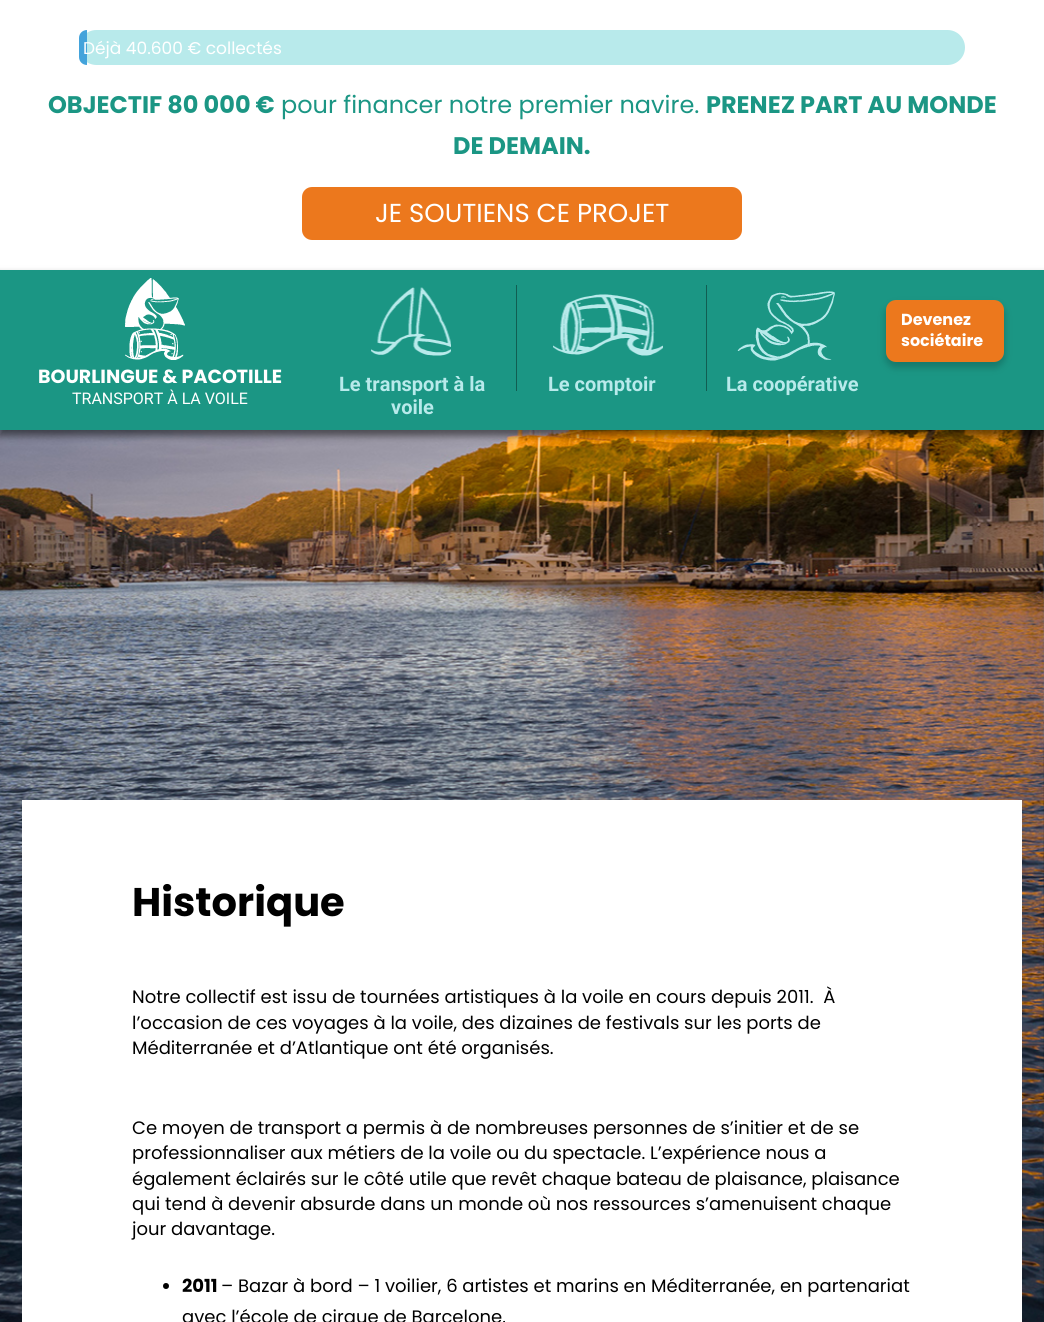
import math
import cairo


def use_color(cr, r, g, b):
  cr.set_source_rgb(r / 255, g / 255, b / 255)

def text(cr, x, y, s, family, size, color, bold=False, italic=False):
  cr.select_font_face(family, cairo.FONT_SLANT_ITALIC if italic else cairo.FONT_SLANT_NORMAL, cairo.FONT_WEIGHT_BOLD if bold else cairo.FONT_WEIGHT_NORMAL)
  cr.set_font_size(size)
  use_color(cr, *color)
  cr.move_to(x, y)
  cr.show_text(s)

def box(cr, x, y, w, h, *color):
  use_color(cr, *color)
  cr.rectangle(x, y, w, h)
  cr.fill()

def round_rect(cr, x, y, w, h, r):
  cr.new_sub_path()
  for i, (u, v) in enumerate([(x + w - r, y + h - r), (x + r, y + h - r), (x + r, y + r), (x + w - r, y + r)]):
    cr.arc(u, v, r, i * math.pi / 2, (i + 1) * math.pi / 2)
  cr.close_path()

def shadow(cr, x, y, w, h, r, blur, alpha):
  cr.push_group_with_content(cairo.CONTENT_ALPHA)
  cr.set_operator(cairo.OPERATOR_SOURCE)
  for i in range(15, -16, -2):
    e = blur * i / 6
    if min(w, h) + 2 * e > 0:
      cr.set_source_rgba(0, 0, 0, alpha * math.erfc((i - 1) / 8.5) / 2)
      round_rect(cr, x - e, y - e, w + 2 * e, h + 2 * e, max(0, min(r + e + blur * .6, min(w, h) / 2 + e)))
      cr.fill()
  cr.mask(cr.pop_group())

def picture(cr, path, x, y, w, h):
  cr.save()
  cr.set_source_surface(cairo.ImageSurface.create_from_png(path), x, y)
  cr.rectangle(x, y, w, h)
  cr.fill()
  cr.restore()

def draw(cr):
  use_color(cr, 255, 255, 255)
  cr.paint()
  picture(cr, "img_01.png", 1043, 430, 1, 892)
  use_color(cr, 184, 234, 235)
  round_rect(cr, 79, 30, 886, 35, 17.5)
  cr.fill()
  use_color(cr, 67, 163, 219)
  cr.new_path()
  cr.move_to(87, 30)
  cr.line_to(87, 65)
  cr.curve_to(82.5, 65, 79, 61.5, 79, 57)
  cr.line_to(79, 38)
  cr.curve_to(79, 33.5, 82.5, 30, 87, 30)
  cr.close_path()
  cr.fill()
  use_color(cr, 236, 120, 29)
  round_rect(cr, 302, 187, 440, 53, 10)
  cr.fill()
  picture(cr, "img_06.png", 0, 430, 1044, 892)
  use_color(cr, 0, 0, 0)
  shadow(cr, -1, 274, 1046, 162, 0, 3.5, 0.49)
  box(cr, 0, 270, 1044, 160, 27, 150, 132)
  picture(cr, "img_02.png", 125, 278, 60, 82)
  use_color(cr, 0, 0, 0)
  shadow(cr, 885, 304, 120, 64, 11, 3.5, 0.19)
  use_color(cr, 236, 120, 29)
  round_rect(cr, 886, 300, 118, 62, 10)
  cr.fill()
  picture(cr, "img_03.png", 371, 287, 80, 69)
  box(cr, 516, 285, 1, 106, 17, 94, 82)
  picture(cr, "img_04.png", 553, 294, 110, 62)
  box(cr, 706, 285, 1, 106, 17, 94, 82)
  picture(cr, "img_05.png", 737, 291, 98, 70)
  box(cr, 22, 800, 1000, 522, 255, 255, 255)
  use_color(cr, 0, 0, 0)
  cr.arc(166, 1286, 3, 0, 2 * math.pi)
  cr.fill()
  text(cr, 83, 54, "Déjà 40.600 € collectés", "Poppins", 17, (255, 255, 255))
  text(cr, 48, 113, "OBJECTIF 80 000 €", "Poppins", 24, (27, 150, 132), bold=True)
  text(cr, 281, 113, "pour financer notre premier navire.", "Poppins", 24, (27, 150, 132))
  text(cr, 706, 113, "PRENEZ PART AU MONDE", "Poppins", 24, (27, 150, 132), bold=True)
  text(cr, 453, 154, "DE DEMAIN.", "Poppins", 24, (27, 150, 132), bold=True)
  text(cr, 375, 222, "JE SOUTIENS CE PROJET", "Poppins", 26, (255, 255, 255))
  text(cr, 901, 325, "Devenez", "Poppins", 16, (255, 255, 255), bold=True)
  text(cr, 901, 346, "sociétaire", "Poppins", 16, (255, 255, 255), bold=True)
  text(cr, 38, 383, "BOURLINGUE & PACOTILLE", "Poppins", 19, (255, 255, 255), bold=True)
  text(cr, 72, 404, "TRANSPORT À LA VOILE", "Roboto", 16, (255, 255, 255))
  text(cr, 339, 391, "Le transport à la", "Roboto", 20, (184, 234, 235), bold=True)
  text(cr, 391, 414, "voile", "Roboto", 20, (184, 234, 235), bold=True)
  text(cr, 548, 391, "Le comptoir", "Roboto", 20, (184, 234, 235), bold=True)
  text(cr, 726, 391, "La coopérative", "Roboto", 20, (184, 234, 235), bold=True)
  text(cr, 132, 916, "Historique", "Poppins", 40, (0, 0, 0), bold=True)
  text(cr, 132, 1003, "Notre collectif est issu de tournées artistiques à la voile en cours depuis 2011.  À", "Poppins", 18, (0, 0, 0))
  text(cr, 132, 1029, "l’occasion de ces voyages à la voile, des dizaines de festivals sur les ports de", "Poppins", 18, (0, 0, 0))
  text(cr, 132, 1054, "Méditerranée et d’Atlantique ont été organisés.", "Poppins", 18, (0, 0, 0))
  text(cr, 132, 1134, "Ce moyen de transport a permis à de nombreuses personnes de s’initier et de se", "Poppins", 18, (0, 0, 0))
  text(cr, 132, 1159, "professionnaliser aux métiers de la voile ou du spectacle. L’expérience nous a", "Poppins", 18, (0, 0, 0))
  text(cr, 132, 1185, "également éclairés sur le côté utile que revêt chaque bateau de plaisance, plaisance", "Poppins", 18, (0, 0, 0))
  text(cr, 132, 1210, "qui tend à devenir absurde dans un monde où nos ressources s’amenuisent chaque", "Poppins", 18, (0, 0, 0))
  text(cr, 132, 1235, "jour davantage.", "Poppins", 18, (0, 0, 0))
  text(cr, 182, 1292, "2011", "Poppins", 18, (0, 0, 0), bold=True)
  text(cr, 221, 1292, "– Bazar à bord – 1 voilier, 6 artistes et marins en Méditerranée, en partenariat", "Poppins", 18, (0, 0, 0))
  text(cr, 182, 1323, "avec l’école de cirque de Barcelone.", "Poppins", 18, (0, 0, 0))


surface = cairo.ImageSurface(cairo.FORMAT_RGB24, 1044, 1322)
cr = cairo.Context(surface)
options = cairo.FontOptions()
options.set_hint_metrics(cairo.HINT_METRICS_OFF)
options.set_hint_style(cairo.HINT_STYLE_NONE)
cr.set_font_options(options)
cr.set_miter_limit(4)
draw(cr)
surface.write_to_png("out.png")
